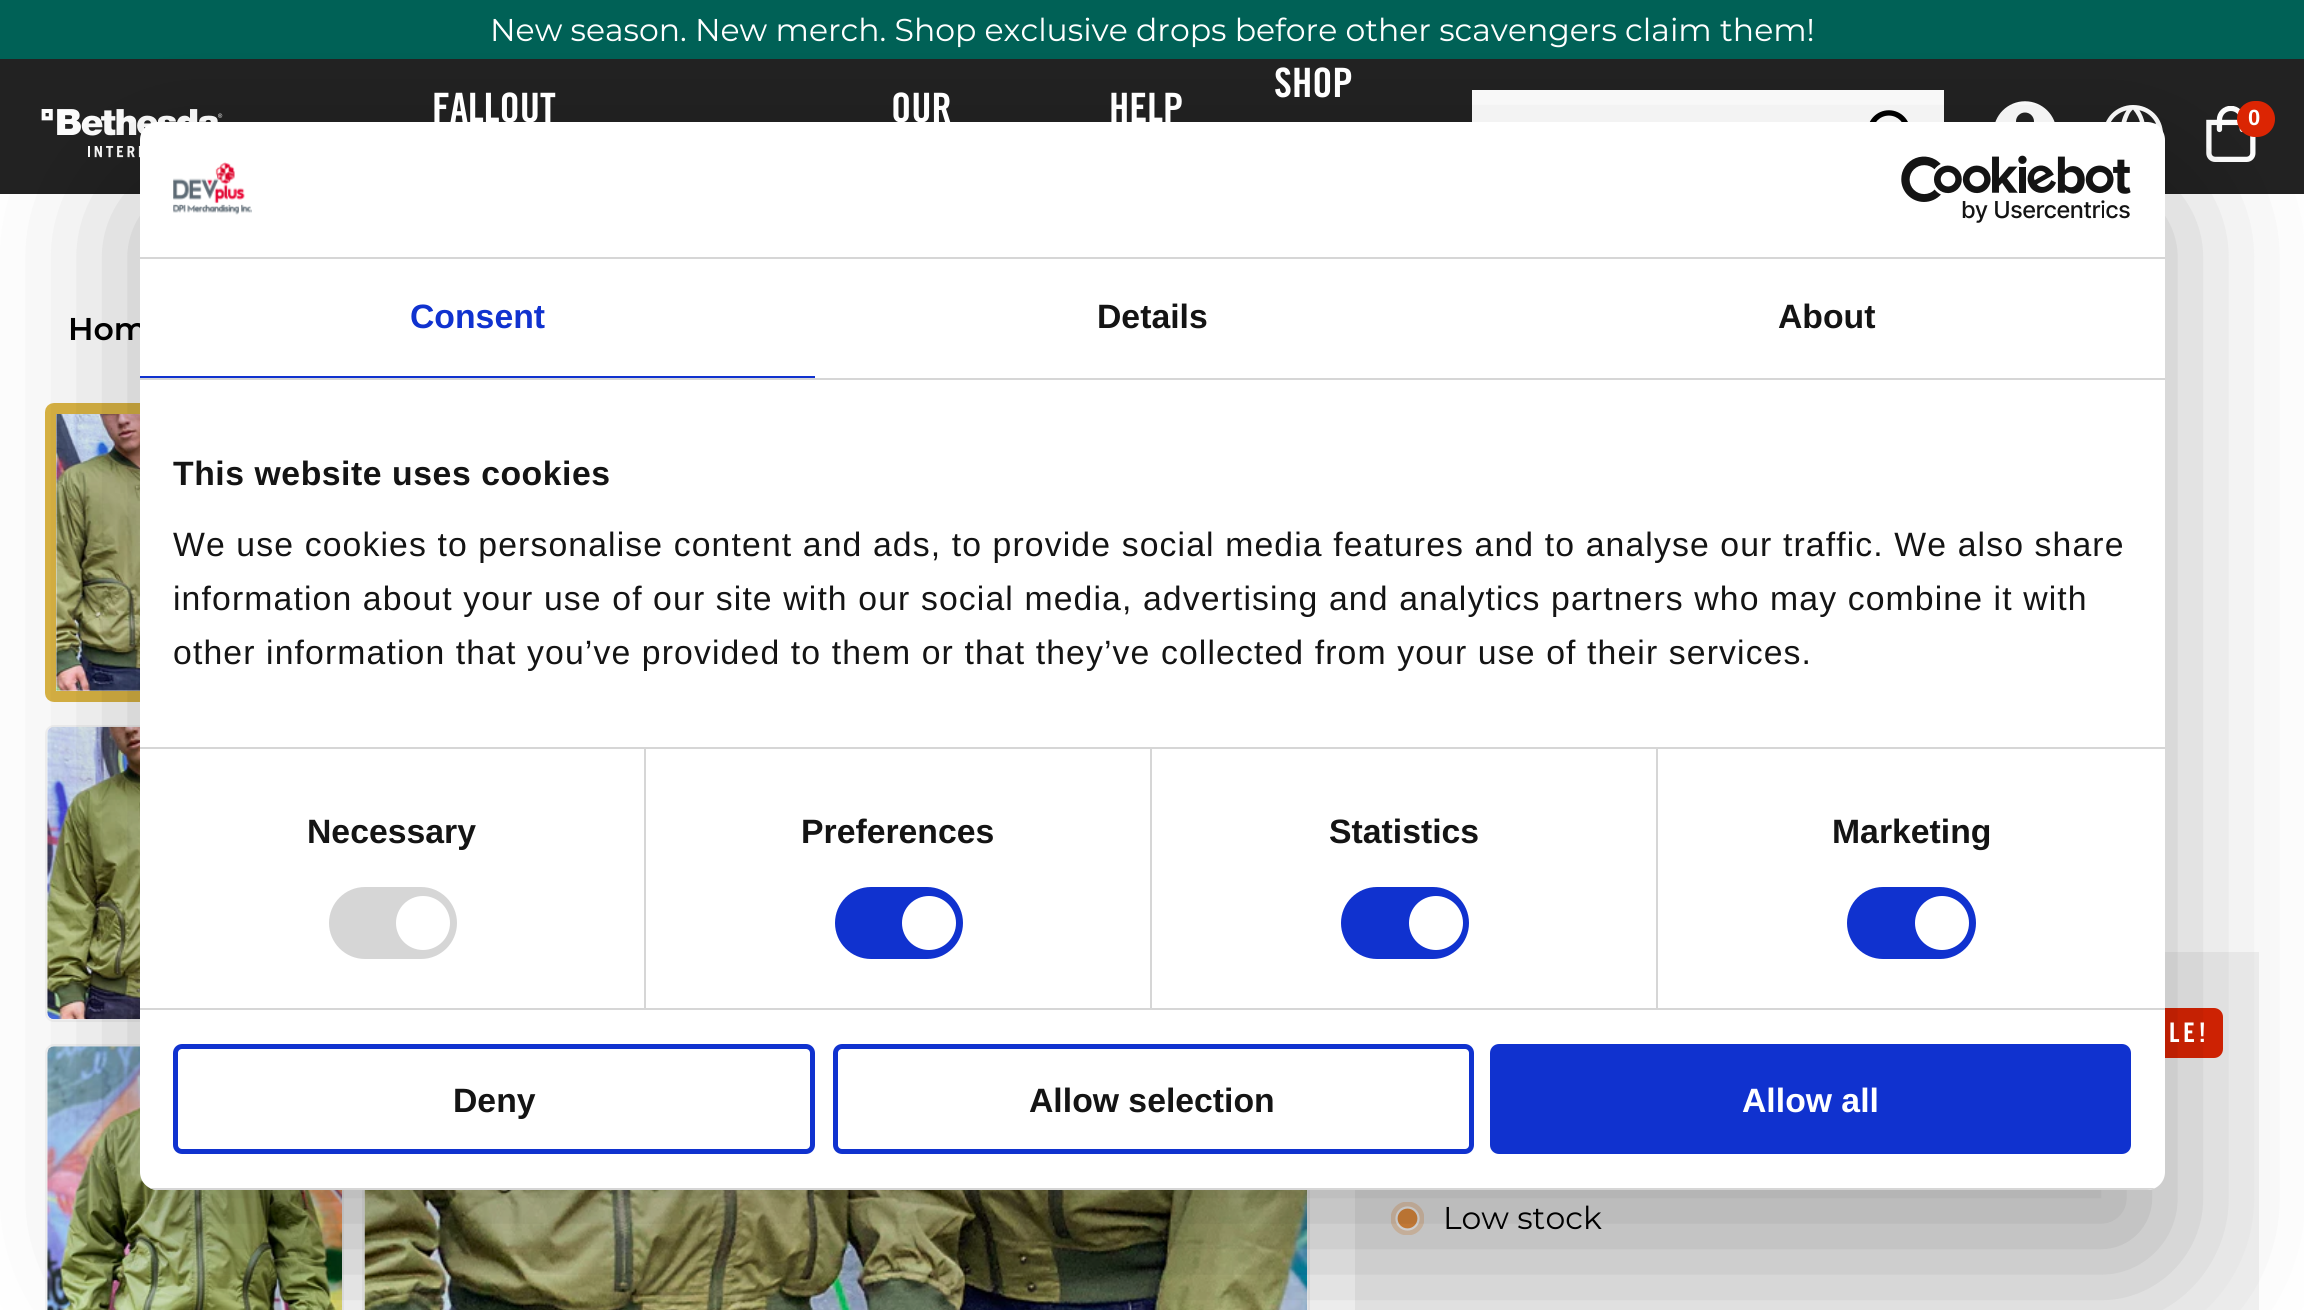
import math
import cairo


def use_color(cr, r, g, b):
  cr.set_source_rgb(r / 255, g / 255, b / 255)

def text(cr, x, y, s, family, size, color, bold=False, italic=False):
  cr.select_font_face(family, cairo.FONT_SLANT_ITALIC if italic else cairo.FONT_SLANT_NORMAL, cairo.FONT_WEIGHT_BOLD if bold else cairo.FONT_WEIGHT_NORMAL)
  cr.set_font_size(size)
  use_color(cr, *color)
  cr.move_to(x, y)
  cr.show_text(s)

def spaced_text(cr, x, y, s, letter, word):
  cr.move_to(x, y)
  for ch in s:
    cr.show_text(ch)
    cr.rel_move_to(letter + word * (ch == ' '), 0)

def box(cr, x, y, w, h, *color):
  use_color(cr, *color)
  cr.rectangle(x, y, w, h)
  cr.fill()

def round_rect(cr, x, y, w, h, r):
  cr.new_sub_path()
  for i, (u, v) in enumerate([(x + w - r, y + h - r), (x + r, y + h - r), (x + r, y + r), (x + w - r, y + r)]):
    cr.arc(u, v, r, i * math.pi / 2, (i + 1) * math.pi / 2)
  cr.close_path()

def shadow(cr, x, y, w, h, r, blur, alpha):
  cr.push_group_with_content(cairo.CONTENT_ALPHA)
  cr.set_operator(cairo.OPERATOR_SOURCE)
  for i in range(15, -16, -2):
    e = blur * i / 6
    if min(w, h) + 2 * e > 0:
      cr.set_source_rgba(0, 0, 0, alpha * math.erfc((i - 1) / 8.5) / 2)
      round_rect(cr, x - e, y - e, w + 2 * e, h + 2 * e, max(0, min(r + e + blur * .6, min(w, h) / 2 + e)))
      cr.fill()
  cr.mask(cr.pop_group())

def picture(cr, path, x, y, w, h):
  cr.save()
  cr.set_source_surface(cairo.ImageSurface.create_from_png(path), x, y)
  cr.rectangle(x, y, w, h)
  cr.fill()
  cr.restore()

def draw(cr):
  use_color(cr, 255, 255, 255)
  cr.paint()
  box(cr, 0, 0, 2304, 59, 0, 97, 86)
  box(cr, 0, 59, 2304, 135, 34, 34, 34)
  picture(cr, "img_01.png", 41, 109, 182, 49)
  box(cr, 1472, 90, 472, 32, 255, 255, 255)
  picture(cr, "img_02.png", 1869, 110, 39, 12)
  picture(cr, "img_03.png", 1995, 101, 60, 21)
  picture(cr, "img_04.png", 2106, 105, 57, 27)
  picture(cr, "img_05.png", 2206, 106, 50, 56)
  use_color(cr, 221, 37, 3)
  round_rect(cr, 2237, 101, 38, 36, 18)
  cr.fill()
  round_rect(cr, 50.5, 408.5, 288, 288, 3.5)
  use_color(cr, 219, 181, 68)
  cr.set_line_width(11)
  cr.stroke()
  picture(cr, "img_08.png", 56, 414, 84, 277)
  round_rect(cr, 46, 726, 297, 295, 8)
  use_color(cr, 243, 243, 243)
  cr.set_line_width(2)
  cr.stroke()
  picture(cr, "img_09.png", 47, 726, 93, 294)
  round_rect(cr, 46, 1045, 297, 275, 8)
  cr.stroke()
  picture(cr, "img_10.png", 47, 1046, 295, 264)
  cr.rectangle(363, 404, 946, 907)
  cr.stroke()
  picture(cr, "img_11.png", 364, 1190, 944, 120)
  box(cr, 1355, 952, 904, 358, 242, 242, 242)
  use_color(cr, 221, 37, 3)
  round_rect(cr, 2124, 1008, 99, 50, 9)
  cr.fill()
  cr.save()
  cr.rectangle(1391, 1202, 33, 33)
  cr.clip()
  use_color(cr, 241, 214, 189)
  cr.arc(1407.5, 1218.5, 17, 0, 2 * math.pi)
  cr.fill()
  cr.restore()
  use_color(cr, 238, 148, 65)
  cr.arc(1407.5, 1218.5, 11, 0, 2 * math.pi)
  cr.fill_preserve()
  use_color(cr, 255, 255, 255)
  cr.set_line_width(2.2)
  cr.stroke()
  use_color(cr, 0, 0, 0)
  shadow(cr, 140, 194, 2025, 1068, 18, 76.5, 0.3)
  text(cr, 490, 41, "New season. New merch. Shop exclusive drops before other scavengers claim them!", "Montserrat", 31.5, (255, 255, 255))
  text(cr, 1274, 97, "SHOP", "Trade Gothic", 40.5, (255, 255, 255), bold=True)
  text(cr, 432, 122, "FALLOUT", "Trade Gothic", 40.5, (255, 255, 255), bold=True)
  text(cr, 891, 122, "OUR", "Trade Gothic", 40.5, (255, 255, 255), bold=True)
  text(cr, 1109, 122, "HELP", "Trade Gothic", 40.5, (255, 255, 255), bold=True)
  cr.select_font_face("Liberation Sans", cairo.FONT_SLANT_NORMAL, cairo.FONT_WEIGHT_BOLD)
  cr.set_font_size(22)
  spaced_text(cr, 2248, 125, "0", 2, 0)
  text(cr, 68, 340, "Hom", "Montserrat SemiBold", 31.5, (0, 0, 0))
  use_color(cr, 255, 255, 255)
  round_rect(cr, 140, 122, 2025, 1068, 18)
  cr.fill()
  use_color(cr, 16, 50, 207)
  round_rect(cr, 1492.5, 1046.5, 636, 105, 6.5)
  cr.fill_preserve()
  cr.set_line_width(5)
  cr.stroke()
  text(cr, 1742, 1112, "Allow all", "Liberation Sans", 33.75, (255, 255, 255), bold=True)
  round_rect(cr, 835.5, 1046.5, 636, 105, 6.5)
  use_color(cr, 16, 50, 207)
  cr.stroke()
  text(cr, 1029, 1112, "Allow selection", "Liberation Sans", 33.75, (20, 20, 20), bold=True)
  round_rect(cr, 175.5, 1046.5, 637, 105, 6.5)
  use_color(cr, 16, 50, 207)
  cr.stroke()
  text(cr, 453, 1112, "Deny", "Liberation Sans", 33.75, (20, 20, 20), bold=True)
  cr.save()
  round_rect(cr, 140, 122, 2025, 1068, 18)
  cr.clip()
  box(cr, 150, 1188, 2005, 2, 214, 214, 214)
  cr.restore()
  use_color(cr, 16, 50, 207)
  round_rect(cr, 1847, 887, 129, 72, 36)
  cr.fill()
  use_color(cr, 255, 255, 255)
  cr.arc(1942, 923, 27, 0, 2 * math.pi)
  cr.fill()
  use_color(cr, 16, 50, 207)
  round_rect(cr, 1341, 887, 128, 72, 36)
  cr.fill()
  use_color(cr, 255, 255, 255)
  cr.arc(1436, 923, 27, 0, 2 * math.pi)
  cr.fill()
  use_color(cr, 16, 50, 207)
  round_rect(cr, 835, 887, 128, 72, 36)
  cr.fill()
  use_color(cr, 255, 255, 255)
  cr.arc(929, 923, 27, 0, 2 * math.pi)
  cr.fill()
  use_color(cr, 214, 214, 214)
  round_rect(cr, 329, 887, 128, 72, 36)
  cr.fill()
  use_color(cr, 255, 255, 255)
  cr.arc(423, 923, 27, 0, 2 * math.pi)
  cr.fill()
  cr.select_font_face("Liberation Sans")
  use_color(cr, 20, 20, 20)
  spaced_text(cr, 173, 664, "other information that you’ve provided to them or that they’ve collected from your use of their services.", 1.12, 0)
  spaced_text(cr, 173, 610, "information about your use of our site with our social media, advertising and analytics partners who may combine it with", 1.12, 0)
  spaced_text(cr, 173, 556, "We use cookies to personalise content and ads, to provide social media features and to analyse our traffic. We also share", 1.12, 0)
  cr.select_font_face("Liberation Sans", cairo.FONT_SLANT_NORMAL, cairo.FONT_WEIGHT_BOLD)
  spaced_text(cr, 173, 485, "This website uses cookies", 0.55, 0)
  box(cr, 140, 747, 2025, 2, 214, 214, 214)
  text(cr, 1778, 328, "About", "Liberation Sans", 33.75, (20, 20, 20), bold=True)
  text(cr, 1097, 328, "Details", "Liberation Sans", 33.75, (20, 20, 20), bold=True)
  text(cr, 410, 328, "Consent", "Liberation Sans", 33.75, (16, 50, 207), bold=True)
  box(cr, 140, 376, 675, 2, 16, 50, 207)
  box(cr, 140, 378, 2025, 2, 214, 214, 214)
  text(cr, 1832, 843, "Marketing", "Liberation Sans", 33.75, (20, 20, 20), bold=True)
  text(cr, 1329, 843, "Statistics", "Liberation Sans", 33.75, (20, 20, 20), bold=True)
  box(cr, 1656, 749, 2, 259, 214, 214, 214)
  text(cr, 801, 843, "Preferences", "Liberation Sans", 33.75, (20, 20, 20), bold=True)
  box(cr, 1150, 749, 2, 259, 214, 214, 214)
  text(cr, 307, 843, "Necessary", "Liberation Sans", 33.75, (20, 20, 20), bold=True)
  box(cr, 644, 749, 2, 259, 214, 214, 214)
  box(cr, 140, 1008, 2025, 2, 214, 214, 214)
  picture(cr, "img_07.png", 1901, 155, 230, 68)
  picture(cr, "img_06.png", 173, 162, 79, 53)
  box(cr, 140, 257, 2025, 2, 214, 214, 214)
  cr.select_font_face("Trade Gothic", cairo.FONT_SLANT_NORMAL, cairo.FONT_WEIGHT_BOLD)
  cr.set_font_size(27)
  use_color(cr, 255, 255, 255)
  spaced_text(cr, 2169, 1042, "LE!", 3.5, 0)
  text(cr, 1443, 1229, "Low stock", "Montserrat", 31.5, (0, 0, 0))


surface = cairo.ImageSurface(cairo.FORMAT_RGB24, 2304, 1310)
cr = cairo.Context(surface)
options = cairo.FontOptions()
options.set_hint_metrics(cairo.HINT_METRICS_OFF)
options.set_hint_style(cairo.HINT_STYLE_NONE)
cr.set_font_options(options)
cr.set_miter_limit(4)
draw(cr)
surface.write_to_png("out.png")
